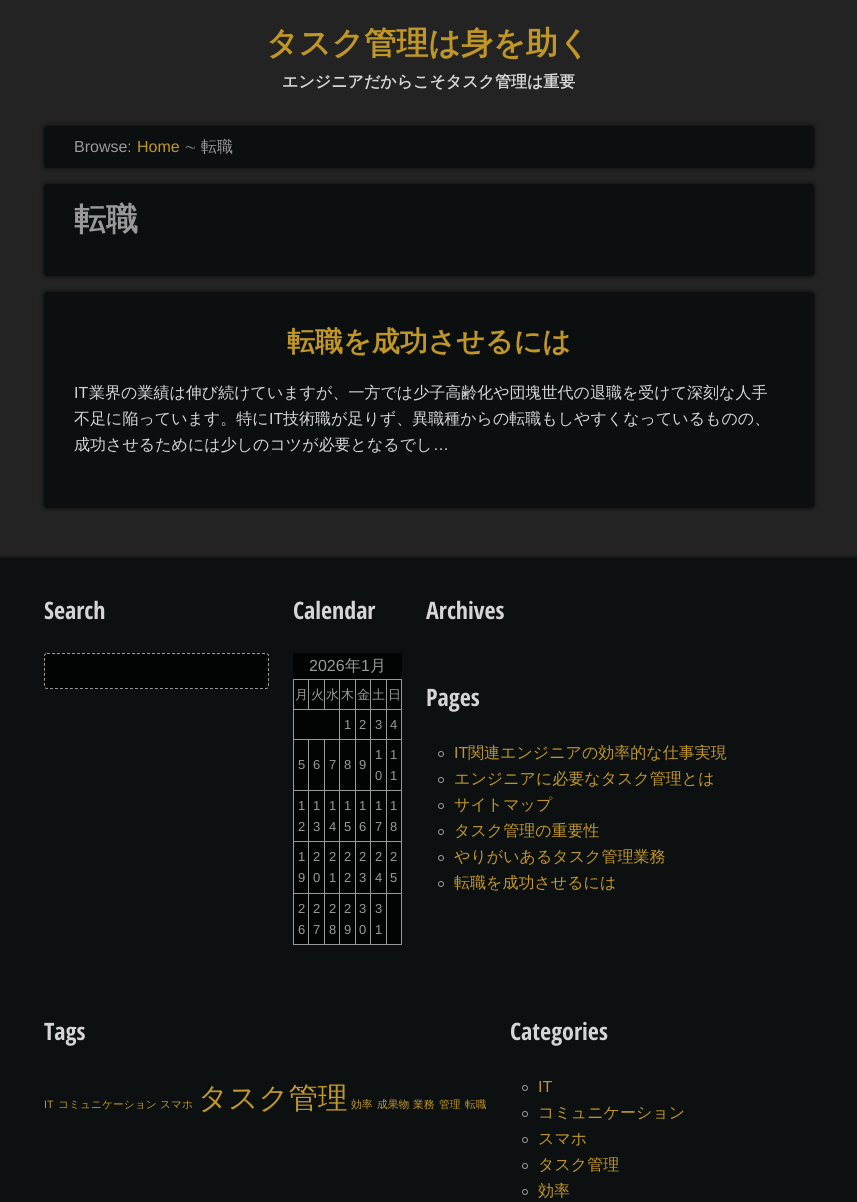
import math
import cairo


def use_color(cr, r, g, b):
  cr.set_source_rgb(r / 255, g / 255, b / 255)

def text(cr, x, y, s, family, size, color, bold=False, italic=False):
  cr.select_font_face(family, cairo.FONT_SLANT_ITALIC if italic else cairo.FONT_SLANT_NORMAL, cairo.FONT_WEIGHT_BOLD if bold else cairo.FONT_WEIGHT_NORMAL)
  cr.set_font_size(size)
  use_color(cr, *color)
  cr.move_to(x, y)
  cr.show_text(s)

def box(cr, x, y, w, h, *color):
  use_color(cr, *color)
  cr.rectangle(x, y, w, h)
  cr.fill()

def round_rect(cr, x, y, w, h, r):
  cr.new_sub_path()
  for i, (u, v) in enumerate([(x + w - r, y + h - r), (x + r, y + h - r), (x + r, y + r), (x + w - r, y + r)]):
    cr.arc(u, v, r, i * math.pi / 2, (i + 1) * math.pi / 2)
  cr.close_path()

def shadow(cr, x, y, w, h, r, blur, alpha):
  cr.push_group_with_content(cairo.CONTENT_ALPHA)
  cr.set_operator(cairo.OPERATOR_SOURCE)
  for i in range(15, -16, -2):
    e = blur * i / 6
    if min(w, h) + 2 * e > 0:
      cr.set_source_rgba(0, 0, 0, alpha * math.erfc((i - 1) / 8.5) / 2)
      round_rect(cr, x - e, y - e, w + 2 * e, h + 2 * e, max(0, min(r + e + blur * .6, min(w, h) / 2 + e)))
      cr.fill()
  cr.mask(cr.pop_group())

def draw(cr):
  use_color(cr, 35, 35, 35)
  cr.paint()
  cr.save()
  cr.set_fill_rule(cairo.FILL_RULE_EVEN_ODD)
  cr.new_path()
  cr.move_to(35, 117)
  cr.line_to(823, 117)
  cr.line_to(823, 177)
  cr.line_to(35, 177)
  cr.close_path()
  cr.move_to(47, 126)
  cr.line_to(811, 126)
  cr.curve_to(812.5, 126, 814, 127.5, 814, 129)
  cr.line_to(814, 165)
  cr.curve_to(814, 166.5, 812.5, 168, 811, 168)
  cr.line_to(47, 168)
  cr.curve_to(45.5, 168, 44, 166.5, 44, 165)
  cr.line_to(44, 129)
  cr.curve_to(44, 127.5, 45.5, 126, 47, 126)
  cr.close_path()
  cr.clip()
  use_color(cr, 0, 0, 0)
  shadow(cr, 44, 126, 770, 42, 3, 2.5, 0.8)
  cr.restore()
  cr.set_source_rgba(0.035, 0.051, 0.055, 0.88)
  round_rect(cr, 44, 126, 770, 42, 3)
  cr.fill()
  cr.save()
  cr.set_fill_rule(cairo.FILL_RULE_EVEN_ODD)
  cr.new_path()
  cr.move_to(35, 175)
  cr.line_to(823, 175)
  cr.line_to(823, 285)
  cr.line_to(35, 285)
  cr.close_path()
  cr.move_to(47, 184)
  cr.line_to(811, 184)
  cr.curve_to(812.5, 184, 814, 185.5, 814, 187)
  cr.line_to(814, 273)
  cr.curve_to(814, 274.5, 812.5, 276, 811, 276)
  cr.line_to(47, 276)
  cr.curve_to(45.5, 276, 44, 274.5, 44, 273)
  cr.line_to(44, 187)
  cr.curve_to(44, 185.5, 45.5, 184, 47, 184)
  cr.close_path()
  cr.clip()
  use_color(cr, 0, 0, 0)
  shadow(cr, 44, 184, 770, 92, 3, 2.5, 0.8)
  cr.restore()
  round_rect(cr, 44, 184, 770, 92, 3)
  cr.fill()
  cr.save()
  cr.set_fill_rule(cairo.FILL_RULE_EVEN_ODD)
  cr.new_path()
  cr.move_to(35, 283)
  cr.line_to(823, 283)
  cr.line_to(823, 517)
  cr.line_to(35, 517)
  cr.close_path()
  cr.move_to(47, 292)
  cr.line_to(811, 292)
  cr.curve_to(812.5, 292, 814, 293.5, 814, 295)
  cr.line_to(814, 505)
  cr.curve_to(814, 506.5, 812.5, 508, 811, 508)
  cr.line_to(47, 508)
  cr.curve_to(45.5, 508, 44, 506.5, 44, 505)
  cr.line_to(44, 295)
  cr.curve_to(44, 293.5, 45.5, 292, 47, 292)
  cr.close_path()
  cr.clip()
  use_color(cr, 0, 0, 0)
  shadow(cr, 44, 292, 770, 216, 3, 2.5, 0.8)
  cr.restore()
  round_rect(cr, 44, 292, 770, 216, 3)
  cr.fill()
  use_color(cr, 0, 0, 0)
  shadow(cr, 0, 558, 857, 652, 0, 2.5, 0.8)
  box(cr, 0, 558, 857, 644, 12, 16, 17)
  use_color(cr, 2, 3, 3)
  round_rect(cr, 44, 653, 225, 36, 3)
  cr.fill()
  cr.new_path()
  cr.move_to(47, 653.5)
  cr.line_to(266, 653.5)
  cr.curve_to(267.5, 653.5, 268.5, 654.5, 268.5, 656)
  cr.line_to(268.5, 686)
  cr.curve_to(268.5, 687.5, 267.5, 688.5, 266, 688.5)
  cr.line_to(47, 688.5)
  cr.curve_to(45.5, 688.5, 44.5, 687.5, 44.5, 686)
  cr.line_to(44.5, 656)
  cr.curve_to(44.5, 654.5, 45.5, 653.5, 47, 653.5)
  cr.close_path()
  use_color(cr, 153, 153, 153)
  cr.set_line_width(1)
  cr.set_dash([3, 2])
  cr.stroke()
  box(cr, 293, 653, 109, 291, 2, 3, 3)
  box(cr, 386, 679, 16, 1, 153, 153, 153)
  box(cr, 386, 709, 16, 1, 153, 153, 153)
  box(cr, 386, 739, 16, 1, 153, 153, 153)
  box(cr, 386, 790, 16, 1, 153, 153, 153)
  box(cr, 386, 841, 16, 1, 153, 153, 153)
  box(cr, 386, 893, 16, 1, 153, 153, 153)
  box(cr, 401, 893, 1, 52, 153, 153, 153)
  box(cr, 386, 944, 16, 1, 153, 153, 153)
  box(cr, 386, 893, 1, 52, 153, 153, 153)
  box(cr, 370, 893, 17, 1, 153, 153, 153)
  box(cr, 386, 841, 1, 53, 153, 153, 153)
  box(cr, 370, 841, 17, 1, 153, 153, 153)
  box(cr, 386, 790, 1, 52, 153, 153, 153)
  box(cr, 370, 790, 17, 1, 153, 153, 153)
  box(cr, 386, 739, 1, 52, 153, 153, 153)
  box(cr, 370, 739, 17, 1, 153, 153, 153)
  box(cr, 386, 709, 1, 31, 153, 153, 153)
  box(cr, 370, 709, 17, 1, 153, 153, 153)
  box(cr, 386, 679, 1, 31, 153, 153, 153)
  box(cr, 370, 679, 17, 1, 153, 153, 153)
  box(cr, 370, 944, 17, 1, 153, 153, 153)
  box(cr, 370, 893, 1, 52, 153, 153, 153)
  box(cr, 355, 893, 16, 1, 153, 153, 153)
  box(cr, 370, 841, 1, 53, 153, 153, 153)
  box(cr, 355, 841, 16, 1, 153, 153, 153)
  box(cr, 370, 790, 1, 52, 153, 153, 153)
  box(cr, 355, 790, 16, 1, 153, 153, 153)
  box(cr, 370, 739, 1, 52, 153, 153, 153)
  box(cr, 355, 739, 16, 1, 153, 153, 153)
  box(cr, 370, 709, 1, 31, 153, 153, 153)
  box(cr, 355, 709, 16, 1, 153, 153, 153)
  box(cr, 370, 679, 1, 31, 153, 153, 153)
  box(cr, 355, 679, 16, 1, 153, 153, 153)
  box(cr, 355, 944, 16, 1, 153, 153, 153)
  box(cr, 355, 893, 1, 52, 153, 153, 153)
  box(cr, 339, 893, 17, 1, 153, 153, 153)
  box(cr, 355, 841, 1, 53, 153, 153, 153)
  box(cr, 339, 841, 17, 1, 153, 153, 153)
  box(cr, 355, 790, 1, 52, 153, 153, 153)
  box(cr, 339, 790, 17, 1, 153, 153, 153)
  box(cr, 355, 739, 1, 52, 153, 153, 153)
  box(cr, 339, 739, 17, 1, 153, 153, 153)
  box(cr, 355, 709, 1, 31, 153, 153, 153)
  box(cr, 339, 709, 17, 1, 153, 153, 153)
  box(cr, 355, 679, 1, 31, 153, 153, 153)
  box(cr, 339, 679, 17, 1, 153, 153, 153)
  box(cr, 339, 944, 17, 1, 153, 153, 153)
  box(cr, 339, 893, 1, 52, 153, 153, 153)
  box(cr, 324, 893, 16, 1, 153, 153, 153)
  box(cr, 339, 841, 1, 53, 153, 153, 153)
  box(cr, 324, 841, 16, 1, 153, 153, 153)
  box(cr, 339, 790, 1, 52, 153, 153, 153)
  box(cr, 324, 790, 16, 1, 153, 153, 153)
  box(cr, 339, 739, 1, 52, 153, 153, 153)
  box(cr, 324, 739, 16, 1, 153, 153, 153)
  box(cr, 339, 709, 1, 31, 153, 153, 153)
  box(cr, 293, 709, 47, 1, 153, 153, 153)
  box(cr, 339, 679, 1, 31, 153, 153, 153)
  box(cr, 324, 679, 16, 1, 153, 153, 153)
  box(cr, 324, 679, 1, 31, 153, 153, 153)
  box(cr, 308, 679, 17, 1, 153, 153, 153)
  box(cr, 308, 679, 1, 31, 153, 153, 153)
  box(cr, 293, 679, 16, 1, 153, 153, 153)
  box(cr, 324, 944, 16, 1, 153, 153, 153)
  box(cr, 324, 893, 1, 52, 153, 153, 153)
  box(cr, 308, 893, 17, 1, 153, 153, 153)
  box(cr, 324, 841, 1, 53, 153, 153, 153)
  box(cr, 308, 841, 17, 1, 153, 153, 153)
  box(cr, 324, 790, 1, 52, 153, 153, 153)
  box(cr, 308, 790, 17, 1, 153, 153, 153)
  box(cr, 324, 739, 1, 52, 153, 153, 153)
  box(cr, 308, 739, 17, 1, 153, 153, 153)
  box(cr, 308, 944, 17, 1, 153, 153, 153)
  box(cr, 308, 893, 1, 52, 153, 153, 153)
  box(cr, 293, 893, 16, 1, 153, 153, 153)
  box(cr, 308, 841, 1, 53, 153, 153, 153)
  box(cr, 293, 841, 16, 1, 153, 153, 153)
  box(cr, 308, 790, 1, 52, 153, 153, 153)
  box(cr, 293, 790, 16, 1, 153, 153, 153)
  box(cr, 308, 739, 1, 52, 153, 153, 153)
  box(cr, 293, 739, 16, 1, 153, 153, 153)
  box(cr, 293, 944, 16, 1, 153, 153, 153)
  box(cr, 293, 893, 1, 52, 153, 153, 153)
  box(cr, 293, 841, 1, 53, 153, 153, 153)
  box(cr, 293, 790, 1, 52, 153, 153, 153)
  box(cr, 293, 739, 1, 52, 153, 153, 153)
  box(cr, 293, 709, 1, 31, 153, 153, 153)
  box(cr, 293, 679, 1, 31, 153, 153, 153)
  box(cr, 401, 841, 1, 53, 153, 153, 153)
  box(cr, 401, 790, 1, 52, 153, 153, 153)
  box(cr, 401, 739, 1, 52, 153, 153, 153)
  box(cr, 401, 709, 1, 31, 153, 153, 153)
  box(cr, 401, 679, 1, 31, 153, 153, 153)
  cr.arc(441, 754, 2.5, 0, 2 * math.pi)
  cr.set_dash([])
  cr.stroke()
  cr.arc(441, 780, 2.5, 0, 2 * math.pi)
  cr.stroke()
  cr.arc(441, 806, 2.5, 0, 2 * math.pi)
  cr.stroke()
  cr.arc(441, 832, 2.5, 0, 2 * math.pi)
  cr.stroke()
  cr.arc(441, 858, 2.5, 0, 2 * math.pi)
  cr.stroke()
  cr.arc(441, 884, 2.5, 0, 2 * math.pi)
  cr.stroke()
  cr.arc(525, 1088, 2.5, 0, 2 * math.pi)
  cr.stroke()
  cr.arc(525, 1114, 2.5, 0, 2 * math.pi)
  cr.stroke()
  cr.arc(525, 1140, 2.5, 0, 2 * math.pi)
  cr.stroke()
  cr.arc(525, 1166, 2.5, 0, 2 * math.pi)
  cr.stroke()
  cr.arc(525, 1192, 2.5, 0, 2 * math.pi)
  cr.stroke()
  text(cr, 266, 54, "タスク管理は身を助く", "WenQuanYi Zen Hei", 32, (192, 150, 38), bold=True)
  text(cr, 282, 87, "エンジニアだからこそタスク管理は重要", "WenQuanYi Zen Hei", 16, (213, 213, 213), bold=True)
  text(cr, 74, 152, "Browse:", "Liberation Sans", 16, (153, 153, 153))
  text(cr, 137, 152, "Home", "Liberation Sans", 16, (192, 150, 38))
  text(cr, 184, 152, "∼", "WenQuanYi Zen Hei Medium", 16, (153, 153, 153))
  text(cr, 201, 152, "転職", "WenQuanYi Zen Hei Medium", 16, (153, 153, 153))
  text(cr, 74, 230, "転職", "WenQuanYi Zen Hei", 32, (153, 153, 153), bold=True)
  text(cr, 287, 351, "転職を成功させるには", "WenQuanYi Zen Hei", 28, (192, 150, 38), bold=True)
  text(cr, 74, 398, "IT", "Liberation Sans", 16, (213, 213, 213))
  text(cr, 89, 398, "業界の業績は伸び続けていますが、一方では少子高齢化や団塊世代の退職を受けて深刻な人手", "WenQuanYi Zen Hei Medium", 16, (213, 213, 213))
  text(cr, 74, 424, "不足に陥っています。特に", "WenQuanYi Zen Hei Medium", 16, (213, 213, 213))
  text(cr, 269, 424, "IT", "Liberation Sans", 16, (213, 213, 213))
  text(cr, 283, 424, "技術職が足りず、異職種からの転職もしやすくなっているものの、", "WenQuanYi Zen Hei Medium", 16, (213, 213, 213))
  text(cr, 74, 450, "成功させるためには少しのコツが必要となるでし", "WenQuanYi Zen Hei Medium", 16, (213, 213, 213))
  text(cr, 433, 450, "…", "Liberation Sans", 16, (213, 213, 213))
  text(cr, 44, 619, "Search", "Open Sans Condensed", 24, (213, 213, 213), bold=True)
  text(cr, 293, 619, "Calendar", "Open Sans Condensed", 24, (213, 213, 213), bold=True)
  text(cr, 309, 671, "2026", "Liberation Sans", 16, (153, 153, 153))
  text(cr, 345, 671, "年", "WenQuanYi Zen Hei Medium", 16, (153, 153, 153))
  text(cr, 361, 671, "1", "Liberation Sans", 16, (153, 153, 153))
  text(cr, 370, 671, "月", "WenQuanYi Zen Hei Medium", 16, (153, 153, 153))
  text(cr, 295, 699, "月", "WenQuanYi Zen Hei Medium", 13, (153, 153, 153))
  text(cr, 311, 699, "火", "WenQuanYi Zen Hei Medium", 13, (153, 153, 153))
  text(cr, 326, 699, "水", "WenQuanYi Zen Hei Medium", 13, (153, 153, 153))
  text(cr, 341, 699, "木", "WenQuanYi Zen Hei Medium", 13, (153, 153, 153))
  text(cr, 357, 699, "金", "WenQuanYi Zen Hei Medium", 13, (153, 153, 153))
  text(cr, 372, 699, "土", "WenQuanYi Zen Hei Medium", 13, (153, 153, 153))
  text(cr, 388, 699, "日", "WenQuanYi Zen Hei Medium", 13, (153, 153, 153))
  text(cr, 344, 729, "1", "Liberation Sans", 13, (153, 153, 153))
  text(cr, 359, 729, "2", "Liberation Sans", 13, (153, 153, 153))
  text(cr, 375, 729, "3", "Liberation Sans", 13, (153, 153, 153))
  text(cr, 390, 729, "4", "Liberation Sans", 13, (153, 153, 153))
  text(cr, 298, 769, "5", "Liberation Sans", 13, (153, 153, 153))
  text(cr, 313, 769, "6", "Liberation Sans", 13, (153, 153, 153))
  text(cr, 329, 769, "7", "Liberation Sans", 13, (153, 153, 153))
  text(cr, 344, 769, "8", "Liberation Sans", 13, (153, 153, 153))
  text(cr, 359, 769, "9", "Liberation Sans", 13, (153, 153, 153))
  text(cr, 375, 759, "1", "Liberation Sans", 13, (153, 153, 153))
  text(cr, 375, 780, "0", "Liberation Sans", 13, (153, 153, 153))
  text(cr, 390, 759, "1", "Liberation Sans", 13, (153, 153, 153))
  text(cr, 390, 780, "1", "Liberation Sans", 13, (153, 153, 153))
  text(cr, 298, 810, "1", "Liberation Sans", 13, (153, 153, 153))
  text(cr, 298, 831, "2", "Liberation Sans", 13, (153, 153, 153))
  text(cr, 313, 810, "1", "Liberation Sans", 13, (153, 153, 153))
  text(cr, 313, 831, "3", "Liberation Sans", 13, (153, 153, 153))
  text(cr, 329, 810, "1", "Liberation Sans", 13, (153, 153, 153))
  text(cr, 329, 831, "4", "Liberation Sans", 13, (153, 153, 153))
  text(cr, 344, 810, "1", "Liberation Sans", 13, (153, 153, 153))
  text(cr, 344, 831, "5", "Liberation Sans", 13, (153, 153, 153))
  text(cr, 359, 810, "1", "Liberation Sans", 13, (153, 153, 153))
  text(cr, 359, 831, "6", "Liberation Sans", 13, (153, 153, 153))
  text(cr, 375, 810, "1", "Liberation Sans", 13, (153, 153, 153))
  text(cr, 375, 831, "7", "Liberation Sans", 13, (153, 153, 153))
  text(cr, 390, 810, "1", "Liberation Sans", 13, (153, 153, 153))
  text(cr, 390, 831, "8", "Liberation Sans", 13, (153, 153, 153))
  text(cr, 298, 861, "1", "Liberation Sans", 13, (153, 153, 153))
  text(cr, 298, 882, "9", "Liberation Sans", 13, (153, 153, 153))
  text(cr, 313, 861, "2", "Liberation Sans", 13, (153, 153, 153))
  text(cr, 313, 882, "0", "Liberation Sans", 13, (153, 153, 153))
  text(cr, 329, 861, "2", "Liberation Sans", 13, (153, 153, 153))
  text(cr, 329, 882, "1", "Liberation Sans", 13, (153, 153, 153))
  text(cr, 344, 861, "2", "Liberation Sans", 13, (153, 153, 153))
  text(cr, 344, 882, "2", "Liberation Sans", 13, (153, 153, 153))
  text(cr, 359, 861, "2", "Liberation Sans", 13, (153, 153, 153))
  text(cr, 359, 882, "3", "Liberation Sans", 13, (153, 153, 153))
  text(cr, 375, 861, "2", "Liberation Sans", 13, (153, 153, 153))
  text(cr, 375, 882, "4", "Liberation Sans", 13, (153, 153, 153))
  text(cr, 390, 861, "2", "Liberation Sans", 13, (153, 153, 153))
  text(cr, 390, 882, "5", "Liberation Sans", 13, (153, 153, 153))
  text(cr, 298, 913, "2", "Liberation Sans", 13, (153, 153, 153))
  text(cr, 298, 934, "6", "Liberation Sans", 13, (153, 153, 153))
  text(cr, 313, 913, "2", "Liberation Sans", 13, (153, 153, 153))
  text(cr, 313, 934, "7", "Liberation Sans", 13, (153, 153, 153))
  text(cr, 329, 913, "2", "Liberation Sans", 13, (153, 153, 153))
  text(cr, 329, 934, "8", "Liberation Sans", 13, (153, 153, 153))
  text(cr, 344, 913, "2", "Liberation Sans", 13, (153, 153, 153))
  text(cr, 344, 934, "9", "Liberation Sans", 13, (153, 153, 153))
  text(cr, 359, 913, "3", "Liberation Sans", 13, (153, 153, 153))
  text(cr, 359, 934, "0", "Liberation Sans", 13, (153, 153, 153))
  text(cr, 375, 913, "3", "Liberation Sans", 13, (153, 153, 153))
  text(cr, 375, 934, "1", "Liberation Sans", 13, (153, 153, 153))
  text(cr, 426, 619, "Archives", "Open Sans Condensed", 24, (213, 213, 213), bold=True)
  text(cr, 426, 706, "Pages", "Open Sans Condensed", 24, (213, 213, 213), bold=True)
  text(cr, 454, 758, "IT", "Liberation Sans", 16, (192, 150, 38))
  text(cr, 468, 758, "関連エンジニアの効率的な仕事実現", "WenQuanYi Zen Hei Medium", 16, (192, 150, 38))
  text(cr, 454, 784, "エンジニアに必要なタスク管理とは", "WenQuanYi Zen Hei Medium", 16, (192, 150, 38))
  text(cr, 454, 810, "サイトマップ", "WenQuanYi Zen Hei Medium", 16, (192, 150, 38))
  text(cr, 454, 836, "タスク管理の重要性", "WenQuanYi Zen Hei Medium", 16, (192, 150, 38))
  text(cr, 454, 862, "やりがいあるタスク管理業務", "WenQuanYi Zen Hei Medium", 16, (192, 150, 38))
  text(cr, 454, 888, "転職を成功させるには", "WenQuanYi Zen Hei Medium", 16, (192, 150, 38))
  text(cr, 44, 1040, "Tags", "Open Sans Condensed", 24, (213, 213, 213), bold=True)
  text(cr, 44, 1108, "IT", "Liberation Sans", 10.75, (192, 150, 38))
  text(cr, 58, 1108, "コミュニケーション", "WenQuanYi Zen Hei Medium", 10.75, (192, 150, 38))
  text(cr, 160, 1108, "スマホ", "WenQuanYi Zen Hei Medium", 10.75, (192, 150, 38))
  text(cr, 198, 1108, "タスク管理", "WenQuanYi Zen Hei Medium", 29.5, (192, 150, 38))
  text(cr, 351, 1108, "効率", "WenQuanYi Zen Hei Medium", 10.75, (192, 150, 38))
  text(cr, 377, 1108, "成果物", "WenQuanYi Zen Hei Medium", 10.75, (192, 150, 38))
  text(cr, 413, 1108, "業務", "WenQuanYi Zen Hei Medium", 10.75, (192, 150, 38))
  text(cr, 439, 1108, "管理", "WenQuanYi Zen Hei Medium", 10.75, (192, 150, 38))
  text(cr, 465, 1108, "転職", "WenQuanYi Zen Hei Medium", 10.75, (192, 150, 38))
  text(cr, 510, 1040, "Categories", "Open Sans Condensed", 24, (213, 213, 213), bold=True)
  text(cr, 538, 1092, "IT", "Liberation Sans", 16, (192, 150, 38))
  text(cr, 538, 1118, "コミュニケーション", "WenQuanYi Zen Hei Medium", 16, (192, 150, 38))
  text(cr, 538, 1144, "スマホ", "WenQuanYi Zen Hei Medium", 16, (192, 150, 38))
  text(cr, 538, 1170, "タスク管理", "WenQuanYi Zen Hei Medium", 16, (192, 150, 38))
  text(cr, 538, 1196, "効率", "WenQuanYi Zen Hei Medium", 16, (192, 150, 38))


surface = cairo.ImageSurface(cairo.FORMAT_RGB24, 857, 1202)
cr = cairo.Context(surface)
options = cairo.FontOptions()
options.set_hint_metrics(cairo.HINT_METRICS_OFF)
options.set_hint_style(cairo.HINT_STYLE_NONE)
cr.set_font_options(options)
cr.set_miter_limit(4)
draw(cr)
surface.write_to_png("out.png")
